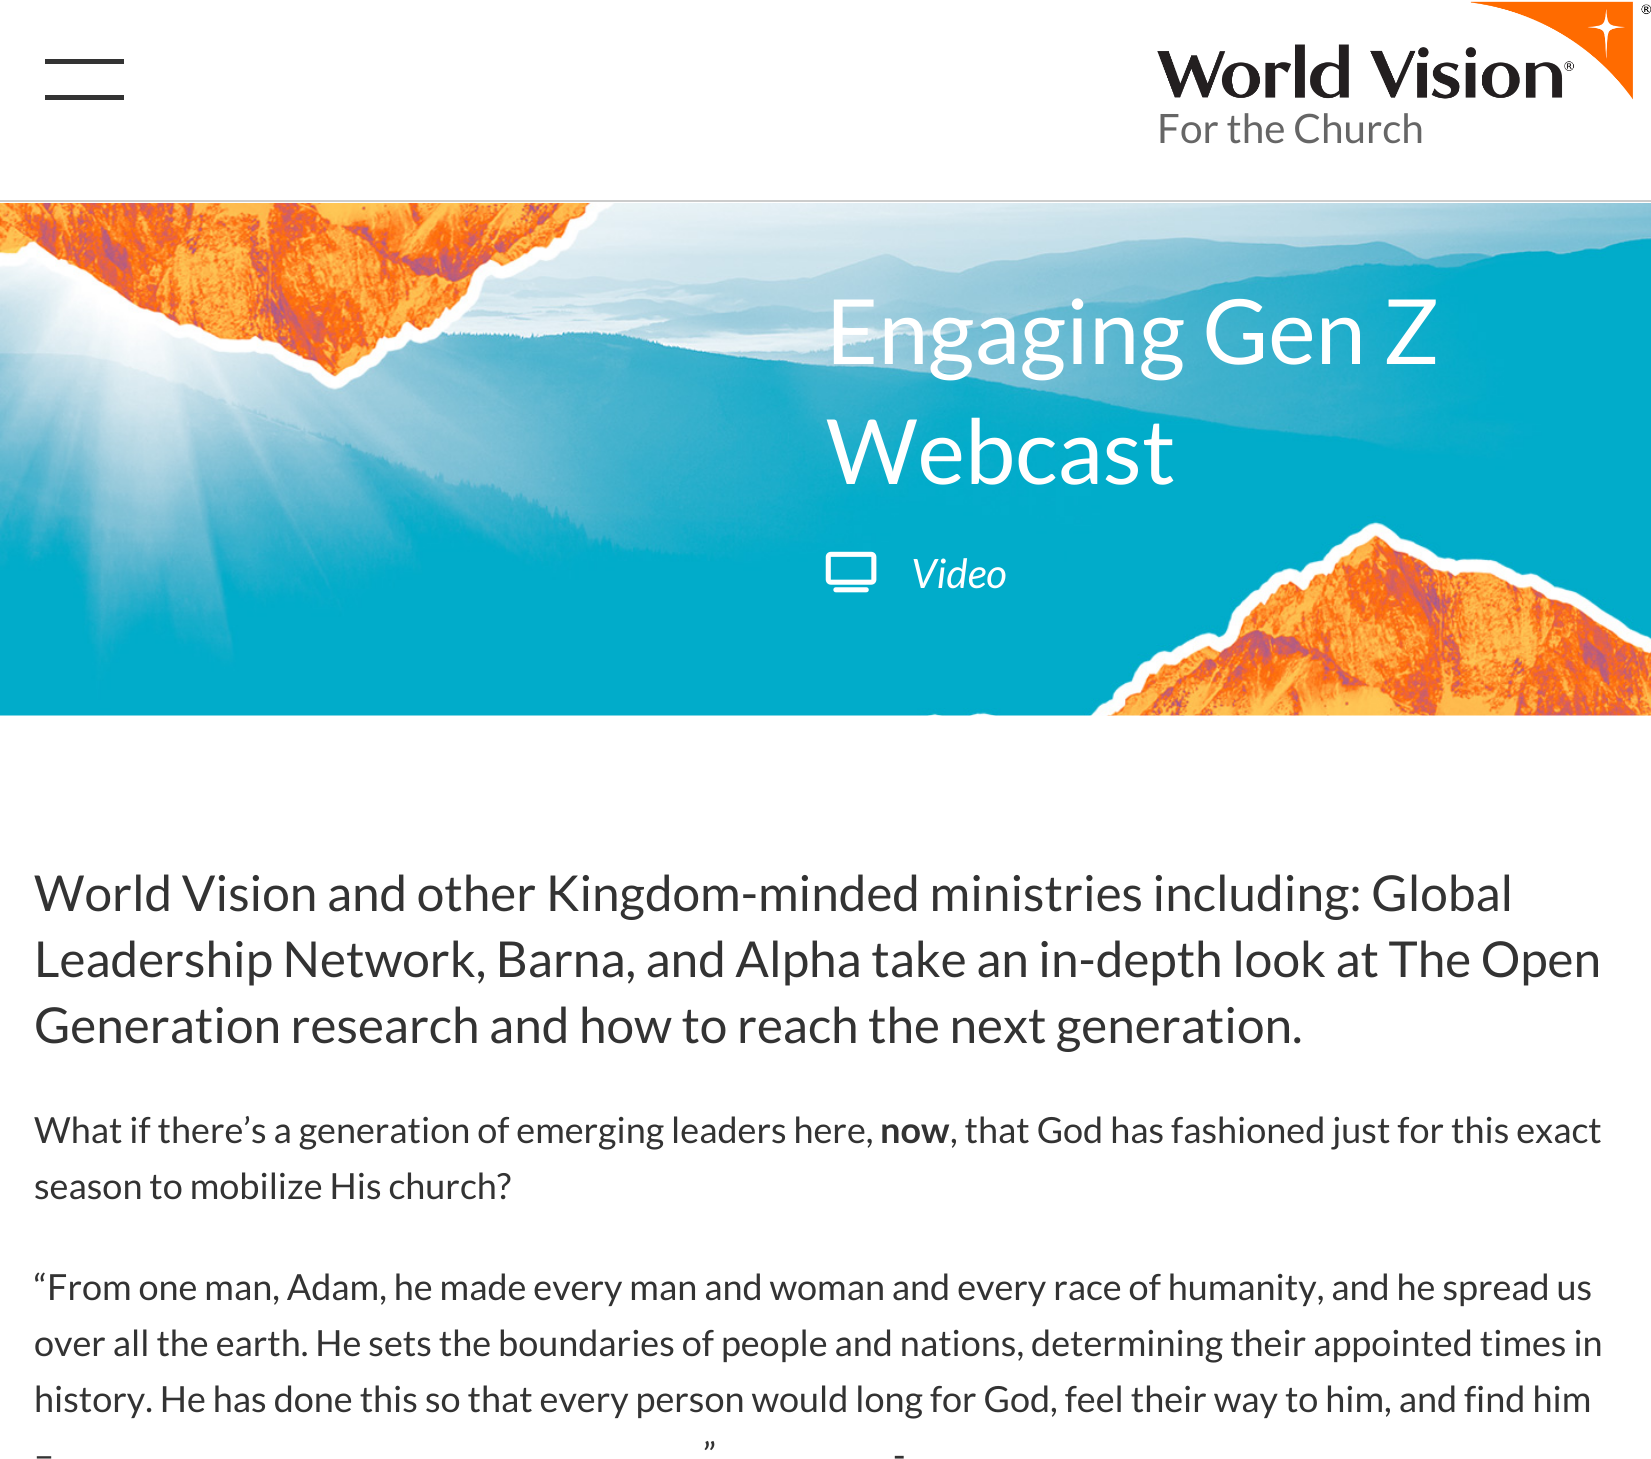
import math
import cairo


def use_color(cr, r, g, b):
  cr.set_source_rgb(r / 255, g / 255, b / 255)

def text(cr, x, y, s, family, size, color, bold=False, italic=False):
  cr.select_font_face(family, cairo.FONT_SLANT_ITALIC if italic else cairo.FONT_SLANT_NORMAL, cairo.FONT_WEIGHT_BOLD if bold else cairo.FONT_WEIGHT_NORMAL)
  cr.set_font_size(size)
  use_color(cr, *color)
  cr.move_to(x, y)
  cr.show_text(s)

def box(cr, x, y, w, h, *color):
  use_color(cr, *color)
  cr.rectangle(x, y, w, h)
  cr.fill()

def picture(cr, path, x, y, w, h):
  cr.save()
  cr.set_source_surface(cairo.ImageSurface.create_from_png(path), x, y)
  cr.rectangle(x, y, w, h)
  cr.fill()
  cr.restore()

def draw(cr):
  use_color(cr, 255, 255, 255)
  cr.paint()
  box(cr, 0, 200, 1651, 2, 204, 204, 204)
  box(cr, 45, 59, 79, 5, 51, 51, 51)
  box(cr, 45, 95, 79, 5, 51, 51, 51)
  picture(cr, "img_01.png", 1157, 1, 494, 99)
  picture(cr, "img_02.png", 0, 203, 1651, 513)
  picture(cr, "img_03.png", 825, 551, 52, 42)
  text(cr, 1157, 143, "For the Church", "Lato", 40.5, (102, 102, 102))
  text(cr, 826, 364, "Engaging Gen Z", "Lato", 90, (255, 255, 255))
  text(cr, 826, 484, "Webcast", "Lato", 90, (255, 255, 255))
  text(cr, 911, 588, "Video", "Lato", 40.5, (255, 255, 255), italic=True)
  text(cr, 34, 911, "World Vision and other Kingdom-minded ministries including: Global", "Lato", 49.5, (51, 51, 51))
  text(cr, 34, 977, "Leadership Network, Barna, and Alpha take an in-depth look at The Open", "Lato", 49.5, (51, 51, 51))
  text(cr, 34, 1043, "Generation research and how to reach the next generation.", "Lato", 49.5, (51, 51, 51))
  text(cr, 34, 1143, "What if there’s a generation of emerging leaders here,", "Lato", 36, (51, 51, 51))
  text(cr, 880, 1143, "now", "Lato", 36, (51, 51, 51), bold=True)
  text(cr, 950, 1143, ", that God has fashioned just for this exact", "Lato", 36, (51, 51, 51))
  text(cr, 34, 1199, "season to mobilize His church?", "Lato", 36, (51, 51, 51))
  text(cr, 34, 1300, "“From one man, Adam, he made every man and woman and every race of humanity, and he spread us", "Lato", 36, (51, 51, 51))
  text(cr, 34, 1356, "over all the earth. He sets the boundaries of people and nations, determining their appointed times in", "Lato", 36, (51, 51, 51))
  text(cr, 34, 1412, "history. He has done this so that every person would long for God, feel their way to him, and find him", "Lato", 36, (51, 51, 51))
  text(cr, 703, 1468, "”", "Lato", 36, (51, 51, 51))
  text(cr, 34, 1468, "–", "Lato", 36, (51, 51, 51))
  text(cr, 893, 1468, "-", "Lato", 36, (51, 51, 51))


surface = cairo.ImageSurface(cairo.FORMAT_RGB24, 1651, 1459)
cr = cairo.Context(surface)
options = cairo.FontOptions()
options.set_hint_metrics(cairo.HINT_METRICS_OFF)
options.set_hint_style(cairo.HINT_STYLE_NONE)
cr.set_font_options(options)
cr.set_miter_limit(4)
draw(cr)
surface.write_to_png("out.png")
